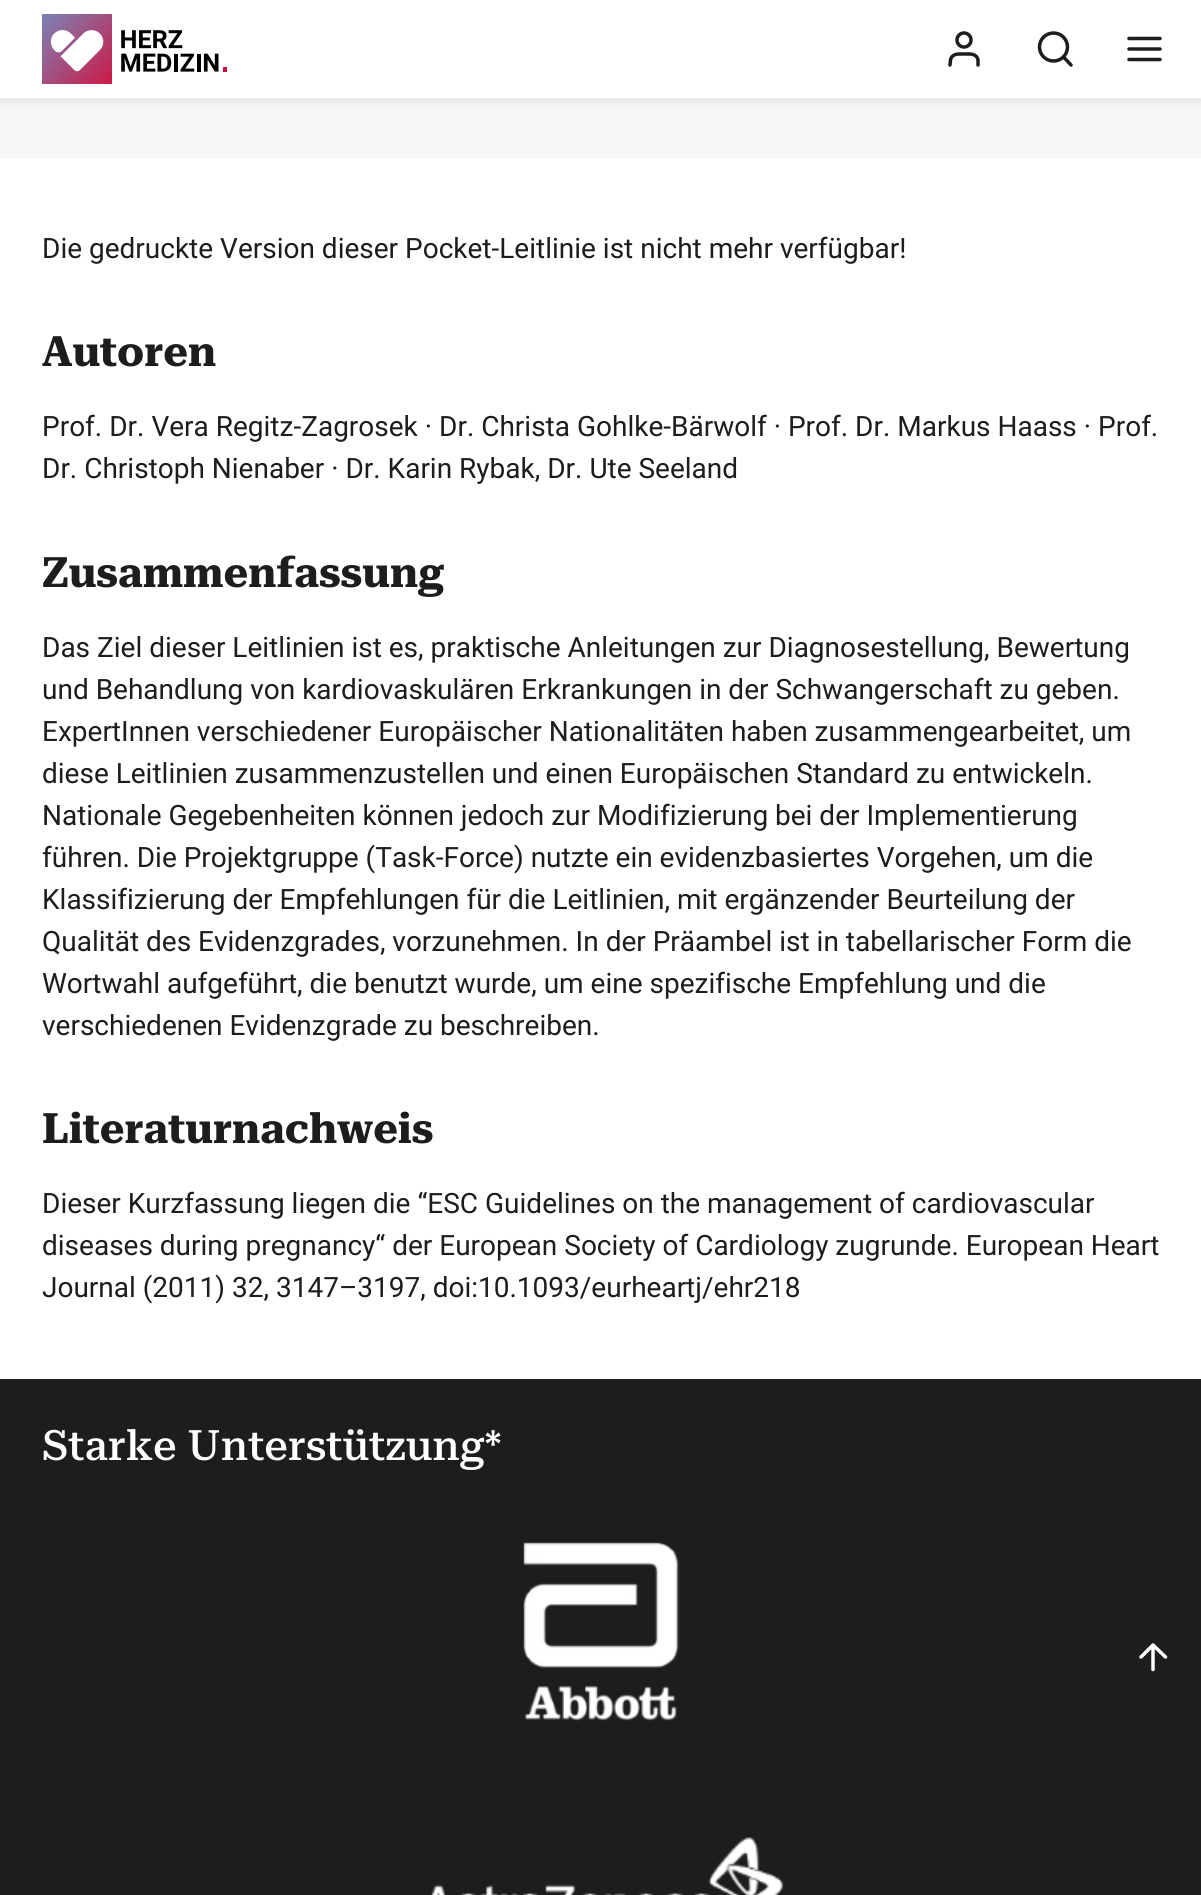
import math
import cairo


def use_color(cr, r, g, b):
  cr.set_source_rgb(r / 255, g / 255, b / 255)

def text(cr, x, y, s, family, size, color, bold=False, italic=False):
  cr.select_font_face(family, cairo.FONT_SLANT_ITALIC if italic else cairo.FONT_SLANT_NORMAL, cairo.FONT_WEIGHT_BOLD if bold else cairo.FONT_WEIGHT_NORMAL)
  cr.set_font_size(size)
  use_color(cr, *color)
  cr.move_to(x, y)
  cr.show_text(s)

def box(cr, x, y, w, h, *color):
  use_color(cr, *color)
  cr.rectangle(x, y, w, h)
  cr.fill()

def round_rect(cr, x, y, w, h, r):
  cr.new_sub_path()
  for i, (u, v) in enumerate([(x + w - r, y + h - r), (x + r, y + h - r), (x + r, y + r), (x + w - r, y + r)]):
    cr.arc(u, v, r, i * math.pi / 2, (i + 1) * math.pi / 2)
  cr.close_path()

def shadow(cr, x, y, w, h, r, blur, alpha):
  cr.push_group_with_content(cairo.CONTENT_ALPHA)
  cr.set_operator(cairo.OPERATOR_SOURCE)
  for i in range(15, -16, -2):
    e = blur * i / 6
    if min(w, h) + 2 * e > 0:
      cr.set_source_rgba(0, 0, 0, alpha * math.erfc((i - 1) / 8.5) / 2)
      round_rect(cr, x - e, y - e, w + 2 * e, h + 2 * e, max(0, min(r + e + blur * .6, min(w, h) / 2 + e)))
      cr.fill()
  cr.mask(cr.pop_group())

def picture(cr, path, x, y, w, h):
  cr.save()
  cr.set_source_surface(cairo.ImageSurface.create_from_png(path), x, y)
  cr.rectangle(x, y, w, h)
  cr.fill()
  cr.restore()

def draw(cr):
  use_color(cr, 255, 255, 255)
  cr.paint()
  box(cr, 0, 98, 1201, 60, 245, 246, 247)
  use_color(cr, 0, 0, 0)
  shadow(cr, 0, 4, 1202, 98, 0, 3.5, 0.07)
  box(cr, 0, 0, 1201, 98, 255, 255, 255)
  picture(cr, "img_01.png", 42, 14, 185, 70)
  cr.new_path()
  cr.move_to(978, 65)
  cr.line_to(978, 60)
  cr.curve_to(976.5, 53, 969.5, 54, 964, 54)
  cr.curve_to(959, 54, 952, 53, 950.5, 60)
  cr.line_to(950, 65)
  use_color(cr, 29, 29, 29)
  cr.set_line_width(3.5)
  cr.set_line_cap(cairo.LINE_CAP_ROUND)
  cr.set_line_join(cairo.LINE_JOIN_ROUND)
  cr.stroke()
  cr.arc(964, 40, 7, 0, 2 * math.pi)
  cr.set_line_cap(cairo.LINE_CAP_BUTT)
  cr.set_line_join(cairo.LINE_JOIN_MITER)
  cr.stroke()
  cr.arc(1053.5, 47, 14, 0, 2 * math.pi)
  cr.stroke()
  cr.new_path()
  cr.move_to(1071, 65)
  cr.line_to(1063.5, 57)
  cr.set_line_cap(cairo.LINE_CAP_ROUND)
  cr.set_line_join(cairo.LINE_JOIN_ROUND)
  cr.stroke()
  cr.new_path()
  cr.move_to(1129, 49)
  cr.line_to(1160, 49)
  cr.move_to(1129, 38.5)
  cr.line_to(1160, 38.5)
  cr.move_to(1129, 59.5)
  cr.line_to(1160, 59.5)
  cr.stroke()
  box(cr, 0, 1379, 1201, 516, 29, 29, 29)
  picture(cr, "img_02.png", 523, 1542, 156, 179)
  picture(cr, "img_03.png", 430, 1837, 354, 58)
  cr.new_path()
  cr.move_to(1153, 1669.5)
  cr.line_to(1153, 1645)
  cr.move_to(1141, 1657)
  cr.line_to(1153, 1645)
  cr.line_to(1165.5, 1657)
  use_color(cr, 255, 255, 255)
  cr.stroke()
  text(cr, 42, 258, "Die gedruckte Version dieser Pocket-Leitlinie ist nicht mehr verfügbar!", "Roboto", 28, (29, 29, 29))
  text(cr, 42, 366, "Autoren", "Roboto Serif", 42, (29, 29, 29), bold=True)
  text(cr, 42, 436, "Prof. Dr. Vera Regitz-Zagrosek · Dr. Christa Gohlke-Bärwolf · Prof. Dr. Markus Haass · Prof.", "Roboto", 28, (29, 29, 29))
  text(cr, 42, 478, "Dr. Christoph Nienaber · Dr. Karin Rybak, Dr. Ute Seeland", "Roboto", 28, (29, 29, 29))
  text(cr, 42, 587, "Zusammenfassung", "Roboto Serif", 42, (29, 29, 29), bold=True)
  text(cr, 42, 657, "Das Ziel dieser Leitlinien ist es, praktische Anleitungen zur Diagnosestellung, Bewertung", "Roboto", 28, (29, 29, 29))
  text(cr, 42, 699, "und Behandlung von kardiovaskulären Erkrankungen in der Schwangerschaft zu geben.", "Roboto", 28, (29, 29, 29))
  text(cr, 42, 741, "ExpertInnen verschiedener Europäischer Nationalitäten haben zusammengearbeitet, um", "Roboto", 28, (29, 29, 29))
  text(cr, 42, 783, "diese Leitlinien zusammenzustellen und einen Europäischen Standard zu entwickeln.", "Roboto", 28, (29, 29, 29))
  text(cr, 42, 825, "Nationale Gegebenheiten können jedoch zur Modifizierung bei der Implementierung", "Roboto", 28, (29, 29, 29))
  text(cr, 42, 867, "führen. Die Projektgruppe (Task-Force) nutzte ein evidenzbasiertes Vorgehen, um die", "Roboto", 28, (29, 29, 29))
  text(cr, 42, 909, "Klassifizierung der Empfehlungen für die Leitlinien, mit ergänzender Beurteilung der", "Roboto", 28, (29, 29, 29))
  text(cr, 42, 951, "Qualität des Evidenzgrades, vorzunehmen. In der Präambel ist in tabellarischer Form die", "Roboto", 28, (29, 29, 29))
  text(cr, 42, 993, "Wortwahl aufgeführt, die benutzt wurde, um eine spezifische Empfehlung und die", "Roboto", 28, (29, 29, 29))
  text(cr, 42, 1035, "verschiedenen Evidenzgrade zu beschreiben.", "Roboto", 28, (29, 29, 29))
  text(cr, 42, 1143, "Literaturnachweis", "Roboto Serif", 42, (29, 29, 29), bold=True)
  text(cr, 42, 1213, "Dieser Kurzfassung liegen die “ESC Guidelines on the management of cardiovascular", "Roboto", 28, (29, 29, 29))
  text(cr, 42, 1255, "diseases during pregnancy“ der European Society of Cardiology zugrunde. European Heart", "Roboto", 28, (29, 29, 29))
  text(cr, 42, 1297, "Journal (2011) 32, 3147–3197, doi:10.1093/eurheartj/ehr218", "Roboto", 28, (29, 29, 29))
  text(cr, 42, 1460, "Starke Unterstützung*", "Roboto Serif Medium", 42, (255, 255, 255))


surface = cairo.ImageSurface(cairo.FORMAT_RGB24, 1201, 1895)
cr = cairo.Context(surface)
options = cairo.FontOptions()
options.set_hint_metrics(cairo.HINT_METRICS_OFF)
options.set_hint_style(cairo.HINT_STYLE_NONE)
cr.set_font_options(options)
cr.set_miter_limit(4)
draw(cr)
surface.write_to_png("out.png")
